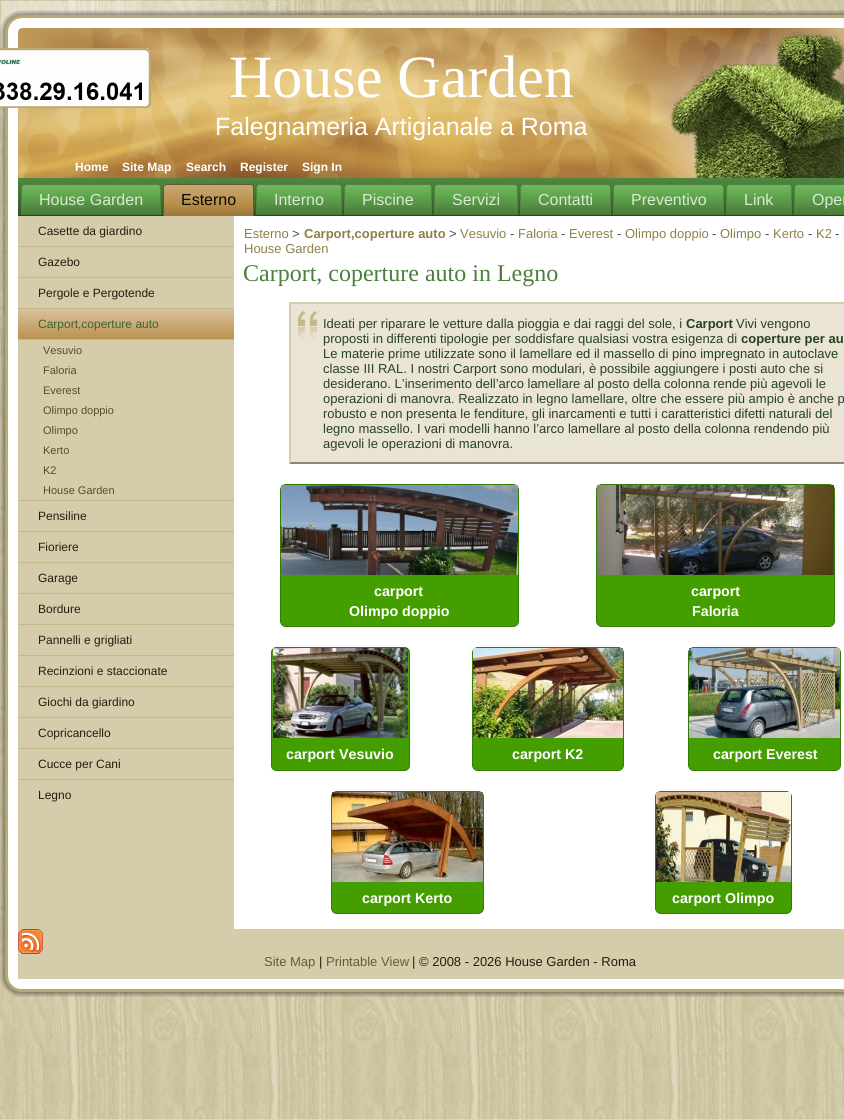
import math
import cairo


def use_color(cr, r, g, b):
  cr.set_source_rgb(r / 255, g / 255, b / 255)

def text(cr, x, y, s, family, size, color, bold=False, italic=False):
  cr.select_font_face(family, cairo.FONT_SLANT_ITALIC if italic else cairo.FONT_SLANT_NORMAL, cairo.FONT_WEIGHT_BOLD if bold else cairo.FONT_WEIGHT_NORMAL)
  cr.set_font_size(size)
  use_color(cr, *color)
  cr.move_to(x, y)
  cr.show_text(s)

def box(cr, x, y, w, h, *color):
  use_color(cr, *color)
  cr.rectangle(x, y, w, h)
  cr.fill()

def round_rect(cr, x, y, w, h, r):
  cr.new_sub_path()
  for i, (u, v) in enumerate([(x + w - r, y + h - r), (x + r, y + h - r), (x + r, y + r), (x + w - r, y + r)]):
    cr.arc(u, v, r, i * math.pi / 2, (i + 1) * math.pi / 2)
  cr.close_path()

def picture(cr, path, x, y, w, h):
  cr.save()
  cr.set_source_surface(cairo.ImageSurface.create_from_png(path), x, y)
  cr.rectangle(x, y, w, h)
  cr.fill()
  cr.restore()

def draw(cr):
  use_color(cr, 255, 255, 255)
  cr.paint()
  picture(cr, "img_01.png", 0, 0, 844, 1119)
  picture(cr, "img_02.png", 1, 1, 481, 418)
  picture(cr, "img_03.png", 0, 10, 37, 37)
  picture(cr, "img_04.png", 37, 10, 807, 18)
  picture(cr, "img_05.png", 0, 47, 18, 913)
  picture(cr, "img_07.png", 18, 28, 826, 150)
  picture(cr, "img_08.png", 22, 32, 822, 142)
  picture(cr, "img_06.png", 0, 48, 151, 60)
  picture(cr, "img_09.png", 18, 178, 826, 38)
  picture(cr, "img_10.png", 21, 184, 136, 31)
  picture(cr, "img_11.png", 157, 184, 4, 31)
  picture(cr, "img_12.png", 163, 184, 87, 32)
  picture(cr, "img_13.png", 250, 184, 4, 32)
  picture(cr, "img_14.png", 256, 184, 82, 31)
  picture(cr, "img_11.png", 338, 184, 4, 31)
  picture(cr, "img_15.png", 344, 184, 84, 31)
  picture(cr, "img_11.png", 428, 184, 4, 31)
  picture(cr, "img_16.png", 434, 184, 80, 31)
  picture(cr, "img_11.png", 514, 184, 4, 31)
  picture(cr, "img_17.png", 520, 184, 87, 31)
  picture(cr, "img_11.png", 607, 184, 4, 31)
  picture(cr, "img_18.png", 613, 184, 107, 31)
  picture(cr, "img_11.png", 720, 184, 4, 31)
  picture(cr, "img_19.png", 726, 184, 62, 31)
  picture(cr, "img_11.png", 788, 184, 4, 31)
  picture(cr, "img_20.png", 794, 184, 50, 31)
  box(cr, 18, 216, 216, 713, 212, 204, 170)
  box(cr, 18, 246, 216, 1, 197, 185, 140)
  box(cr, 18, 277, 216, 1, 197, 185, 140)
  box(cr, 18, 308, 216, 1, 197, 185, 140)
  picture(cr, "img_21.png", 18, 309, 216, 30)
  box(cr, 18, 339, 216, 1, 197, 185, 140)
  box(cr, 18, 500, 216, 1, 197, 185, 140)
  box(cr, 18, 531, 216, 1, 197, 185, 140)
  box(cr, 18, 562, 216, 1, 197, 185, 140)
  box(cr, 18, 593, 216, 1, 197, 185, 140)
  box(cr, 18, 624, 216, 1, 197, 185, 140)
  box(cr, 18, 655, 216, 1, 197, 185, 140)
  box(cr, 18, 686, 216, 1, 197, 185, 140)
  box(cr, 18, 717, 216, 1, 197, 185, 140)
  box(cr, 18, 748, 216, 1, 197, 185, 140)
  box(cr, 18, 779, 216, 1, 197, 185, 140)
  box(cr, 234, 216, 610, 713, 255, 255, 255)
  box(cr, 289, 302, 555, 162, 233, 228, 211)
  picture(cr, "img_22.png", 298, 311, 20, 29)
  use_color(cr, 212, 204, 170)
  cr.new_path()
  cr.move_to(289, 302)
  cr.line_to(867, 302)
  cr.line_to(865, 304)
  cr.line_to(291, 304)
  cr.close_path()
  cr.fill()
  use_color(cr, 141, 136, 113)
  cr.new_path()
  cr.move_to(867, 464)
  cr.line_to(289, 464)
  cr.line_to(291, 462)
  cr.line_to(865, 462)
  cr.close_path()
  cr.fill()
  use_color(cr, 212, 204, 170)
  cr.new_path()
  cr.move_to(289, 464)
  cr.line_to(289, 302)
  cr.line_to(291, 304)
  cr.line_to(291, 462)
  cr.close_path()
  cr.fill()
  use_color(cr, 69, 158, 0)
  round_rect(cr, 280.5, 484.5, 238, 142, 5.5)
  cr.fill_preserve()
  use_color(cr, 50, 126, 4)
  cr.set_line_width(1)
  cr.stroke()
  picture(cr, "img_23.png", 281, 485, 237, 90)
  use_color(cr, 69, 158, 0)
  round_rect(cr, 596.5, 484.5, 238, 142, 5.5)
  cr.fill_preserve()
  use_color(cr, 50, 126, 4)
  cr.stroke()
  picture(cr, "img_24.png", 597, 485, 237, 90)
  use_color(cr, 69, 158, 0)
  round_rect(cr, 271, 647, 139, 124, 6)
  cr.fill()
  picture(cr, "img_25.png", 272, 659, 137, 53)
  round_rect(cr, 271.5, 647.5, 138, 123, 5.5)
  use_color(cr, 50, 126, 4)
  cr.stroke()
  picture(cr, "img_26.png", 273, 648, 135, 90)
  use_color(cr, 69, 158, 0)
  round_rect(cr, 472.5, 647.5, 151, 123, 5.5)
  cr.fill_preserve()
  use_color(cr, 50, 126, 4)
  cr.stroke()
  picture(cr, "img_27.png", 473, 648, 150, 90)
  use_color(cr, 69, 158, 0)
  round_rect(cr, 688.5, 647.5, 152, 123, 5.5)
  cr.fill_preserve()
  use_color(cr, 50, 126, 4)
  cr.stroke()
  picture(cr, "img_28.png", 689, 648, 151, 90)
  use_color(cr, 69, 158, 0)
  round_rect(cr, 331.5, 791.5, 152, 122, 5.5)
  cr.fill_preserve()
  use_color(cr, 50, 126, 4)
  cr.stroke()
  picture(cr, "img_29.png", 332, 792, 151, 90)
  use_color(cr, 69, 158, 0)
  round_rect(cr, 655.5, 791.5, 136, 122, 5.5)
  cr.fill_preserve()
  use_color(cr, 50, 126, 4)
  cr.stroke()
  picture(cr, "img_30.png", 656, 792, 135, 90)
  picture(cr, "img_32.png", 0, 960, 37, 37)
  box(cr, 18, 929, 826, 50, 212, 204, 170)
  picture(cr, "img_31.png", 18, 929, 25, 25)
  picture(cr, "img_33.png", 37, 979, 807, 18)
  text(cr, 229, 97, "House Garden", "Liberation Serif", 60, (255, 255, 255))
  text(cr, 215, 135, "Falegnameria Artigianale a Roma", "Liberation Sans", 25, (255, 255, 255))
  text(cr, 39, 205, "House Garden", "Liberation Sans", 16, (215, 234, 210))
  text(cr, 181, 205, "Esterno", "Liberation Sans", 16, (6, 10, 5))
  text(cr, 274, 205, "Interno", "Liberation Sans", 16, (215, 234, 210))
  text(cr, 362, 205, "Piscine", "Liberation Sans", 16, (215, 234, 210))
  text(cr, 452, 205, "Servizi", "Liberation Sans", 16, (215, 234, 210))
  text(cr, 538, 205, "Contatti", "Liberation Sans", 16, (215, 234, 210))
  text(cr, 631, 205, "Preventivo", "Liberation Sans", 16, (215, 234, 210))
  text(cr, 744, 205, "Link", "Liberation Sans", 16, (215, 234, 210))
  text(cr, 812, 205, "Oper", "Liberation Sans", 16, (215, 234, 210))
  text(cr, 38, 235, "Casette da giardino", "Liberation Sans", 12, (34, 31, 17))
  text(cr, 38, 266, "Gazebo", "Liberation Sans", 12, (34, 31, 17))
  text(cr, 38, 297, "Pergole e Pergotende", "Liberation Sans", 12, (34, 31, 17))
  text(cr, 38, 328, "Carport,coperture auto", "Liberation Sans", 12, (59, 101, 47))
  text(cr, 43, 354, "Vesuvio", "Liberation Sans", 11, (85, 76, 43))
  text(cr, 43, 374, "Faloria", "Liberation Sans", 11, (85, 76, 43))
  text(cr, 43, 394, "Everest", "Liberation Sans", 11, (85, 76, 43))
  text(cr, 43, 414, "Olimpo doppio", "Liberation Sans", 11, (85, 76, 43))
  text(cr, 43, 434, "Olimpo", "Liberation Sans", 11, (85, 76, 43))
  text(cr, 43, 454, "Kerto", "Liberation Sans", 11, (85, 76, 43))
  text(cr, 43, 474, "K2", "Liberation Sans", 11, (85, 76, 43))
  text(cr, 43, 494, "House Garden", "Liberation Sans", 11, (85, 76, 43))
  text(cr, 38, 520, "Pensiline", "Liberation Sans", 12, (34, 31, 17))
  text(cr, 38, 551, "Fioriere", "Liberation Sans", 12, (34, 31, 17))
  text(cr, 38, 582, "Garage", "Liberation Sans", 12, (34, 31, 17))
  text(cr, 38, 613, "Bordure", "Liberation Sans", 12, (34, 31, 17))
  text(cr, 38, 644, "Pannelli e grigliati", "Liberation Sans", 12, (34, 31, 17))
  text(cr, 38, 675, "Recinzioni e staccionate", "Liberation Sans", 12, (34, 31, 17))
  text(cr, 38, 706, "Giochi da giardino", "Liberation Sans", 12, (34, 31, 17))
  text(cr, 38, 737, "Copricancello", "Liberation Sans", 12, (34, 31, 17))
  text(cr, 38, 768, "Cucce per Cani", "Liberation Sans", 12, (34, 31, 17))
  text(cr, 38, 799, "Legno", "Liberation Sans", 12, (34, 31, 17))
  text(cr, 244, 238, "Esterno", "Liberation Sans", 13, (142, 128, 72))
  text(cr, 292, 238, ">", "Liberation Sans", 13, (60, 78, 88))
  text(cr, 304, 238, "Carport,coperture auto", "Liberation Sans", 13, (142, 128, 72), bold=True)
  text(cr, 449, 238, ">", "Liberation Sans", 13, (60, 78, 88))
  text(cr, 460, 238, "Vesuvio", "Liberation Sans", 13, (142, 128, 72))
  text(cr, 510, 238, "-", "Liberation Sans", 13, (60, 78, 88))
  text(cr, 518, 238, "Faloria", "Liberation Sans", 13, (142, 128, 72))
  text(cr, 561, 238, "-", "Liberation Sans", 13, (60, 78, 88))
  text(cr, 569, 238, "Everest", "Liberation Sans", 13, (142, 128, 72))
  text(cr, 617, 238, "-", "Liberation Sans", 13, (60, 78, 88))
  text(cr, 625, 238, "Olimpo doppio", "Liberation Sans", 13, (142, 128, 72))
  text(cr, 712, 238, "-", "Liberation Sans", 13, (60, 78, 88))
  text(cr, 720, 238, "Olimpo", "Liberation Sans", 13, (142, 128, 72))
  text(cr, 765, 238, "-", "Liberation Sans", 13, (60, 78, 88))
  text(cr, 773, 238, "Kerto", "Liberation Sans", 13, (142, 128, 72))
  text(cr, 808, 238, "-", "Liberation Sans", 13, (60, 78, 88))
  text(cr, 816, 238, "K2", "Liberation Sans", 13, (142, 128, 72))
  text(cr, 835, 238, "-", "Liberation Sans", 13, (60, 78, 88))
  text(cr, 244, 253, "House Garden", "Liberation Sans", 13, (142, 128, 72))
  text(cr, 243, 281, "Carport, coperture auto in Legno", "Liberation Serif", 24, (75, 128, 60))
  text(cr, 323, 328, "Ideati per riparare le vetture dalla pioggia e dai raggi del sole, i", "Liberation Sans", 13, (39, 66, 31))
  text(cr, 686, 328, "Carport", "Liberation Sans", 13, (39, 66, 31), bold=True)
  text(cr, 736, 328, "Vivi vengono", "Liberation Sans", 13, (39, 66, 31))
  text(cr, 323, 343, "proposti in differenti tipologie per soddisfare qualsiasi vostra esigenza di", "Liberation Sans", 13, (39, 66, 31))
  text(cr, 741, 343, "coperture per au", "Liberation Sans", 13, (39, 66, 31), bold=True)
  text(cr, 323, 358, "Le materie prime utilizzate sono il lamellare ed il massello di pino impregnato in autoclave", "Liberation Sans", 13, (39, 66, 31))
  text(cr, 323, 373, "classe III RAL. I nostri Carport sono modulari, è possibile aggiungere i posti auto che si", "Liberation Sans", 13, (39, 66, 31))
  text(cr, 323, 388, "desiderano. L’inserimento dell’arco lamellare al posto della colonna rende più agevoli le", "Liberation Sans", 13, (39, 66, 31))
  text(cr, 323, 403, "operazioni di manovra. Realizzato in legno lamellare, oltre che essere più ampio è anche p", "Liberation Sans", 13, (39, 66, 31))
  text(cr, 323, 418, "robusto e non presenta le fenditure, gli inarcamenti e tutti i caratteristici difetti naturali del", "Liberation Sans", 13, (39, 66, 31))
  text(cr, 323, 433, "legno massello. I vari modelli hanno l’arco lamellare al posto della colonna rendendo più", "Liberation Sans", 13, (39, 66, 31))
  text(cr, 323, 448, "agevoli le operazioni di manovra.", "Liberation Sans", 13, (39, 66, 31))
  text(cr, 374, 596, "carport", "Liberation Sans", 14.25, (255, 255, 255), bold=True)
  text(cr, 349, 616, "Olimpo doppio", "Liberation Sans", 14.25, (255, 255, 255), bold=True)
  text(cr, 691, 596, "carport", "Liberation Sans", 14.25, (255, 255, 255), bold=True)
  text(cr, 692, 616, "Faloria", "Liberation Sans", 14.25, (255, 255, 255), bold=True)
  text(cr, 286, 759, "carport Vesuvio", "Liberation Sans", 14.25, (255, 255, 255), bold=True)
  text(cr, 512, 759, "carport K2", "Liberation Sans", 14.25, (255, 255, 255), bold=True)
  text(cr, 713, 759, "carport Everest", "Liberation Sans", 14.25, (255, 255, 255), bold=True)
  text(cr, 362, 903, "carport Kerto", "Liberation Sans", 14.25, (255, 255, 255), bold=True)
  text(cr, 672, 903, "carport Olimpo", "Liberation Sans", 14.25, (255, 255, 255), bold=True)
  text(cr, 264, 966, "Site Map", "Liberation Sans", 13, (102, 92, 51))
  text(cr, 319, 966, "|", "Liberation Sans", 13, (34, 31, 17))
  text(cr, 326, 966, "Printable View", "Liberation Sans", 13, (102, 92, 51))
  text(cr, 412, 966, "| © 2008 - 2026 House Garden - Roma", "Liberation Sans", 13, (34, 31, 17))
  text(cr, 75, 171, "Home", "Liberation Sans", 12, (255, 255, 255), bold=True)
  text(cr, 122, 171, "Site Map", "Liberation Sans", 12, (255, 255, 255), bold=True)
  text(cr, 186, 171, "Search", "Liberation Sans", 12, (255, 255, 255), bold=True)
  text(cr, 240, 171, "Register", "Liberation Sans", 12, (255, 255, 255), bold=True)
  text(cr, 302, 171, "Sign In", "Liberation Sans", 12, (255, 255, 255), bold=True)


surface = cairo.ImageSurface(cairo.FORMAT_RGB24, 844, 1119)
cr = cairo.Context(surface)
options = cairo.FontOptions()
options.set_hint_metrics(cairo.HINT_METRICS_OFF)
options.set_hint_style(cairo.HINT_STYLE_NONE)
cr.set_font_options(options)
cr.set_miter_limit(4)
draw(cr)
surface.write_to_png("out.png")
